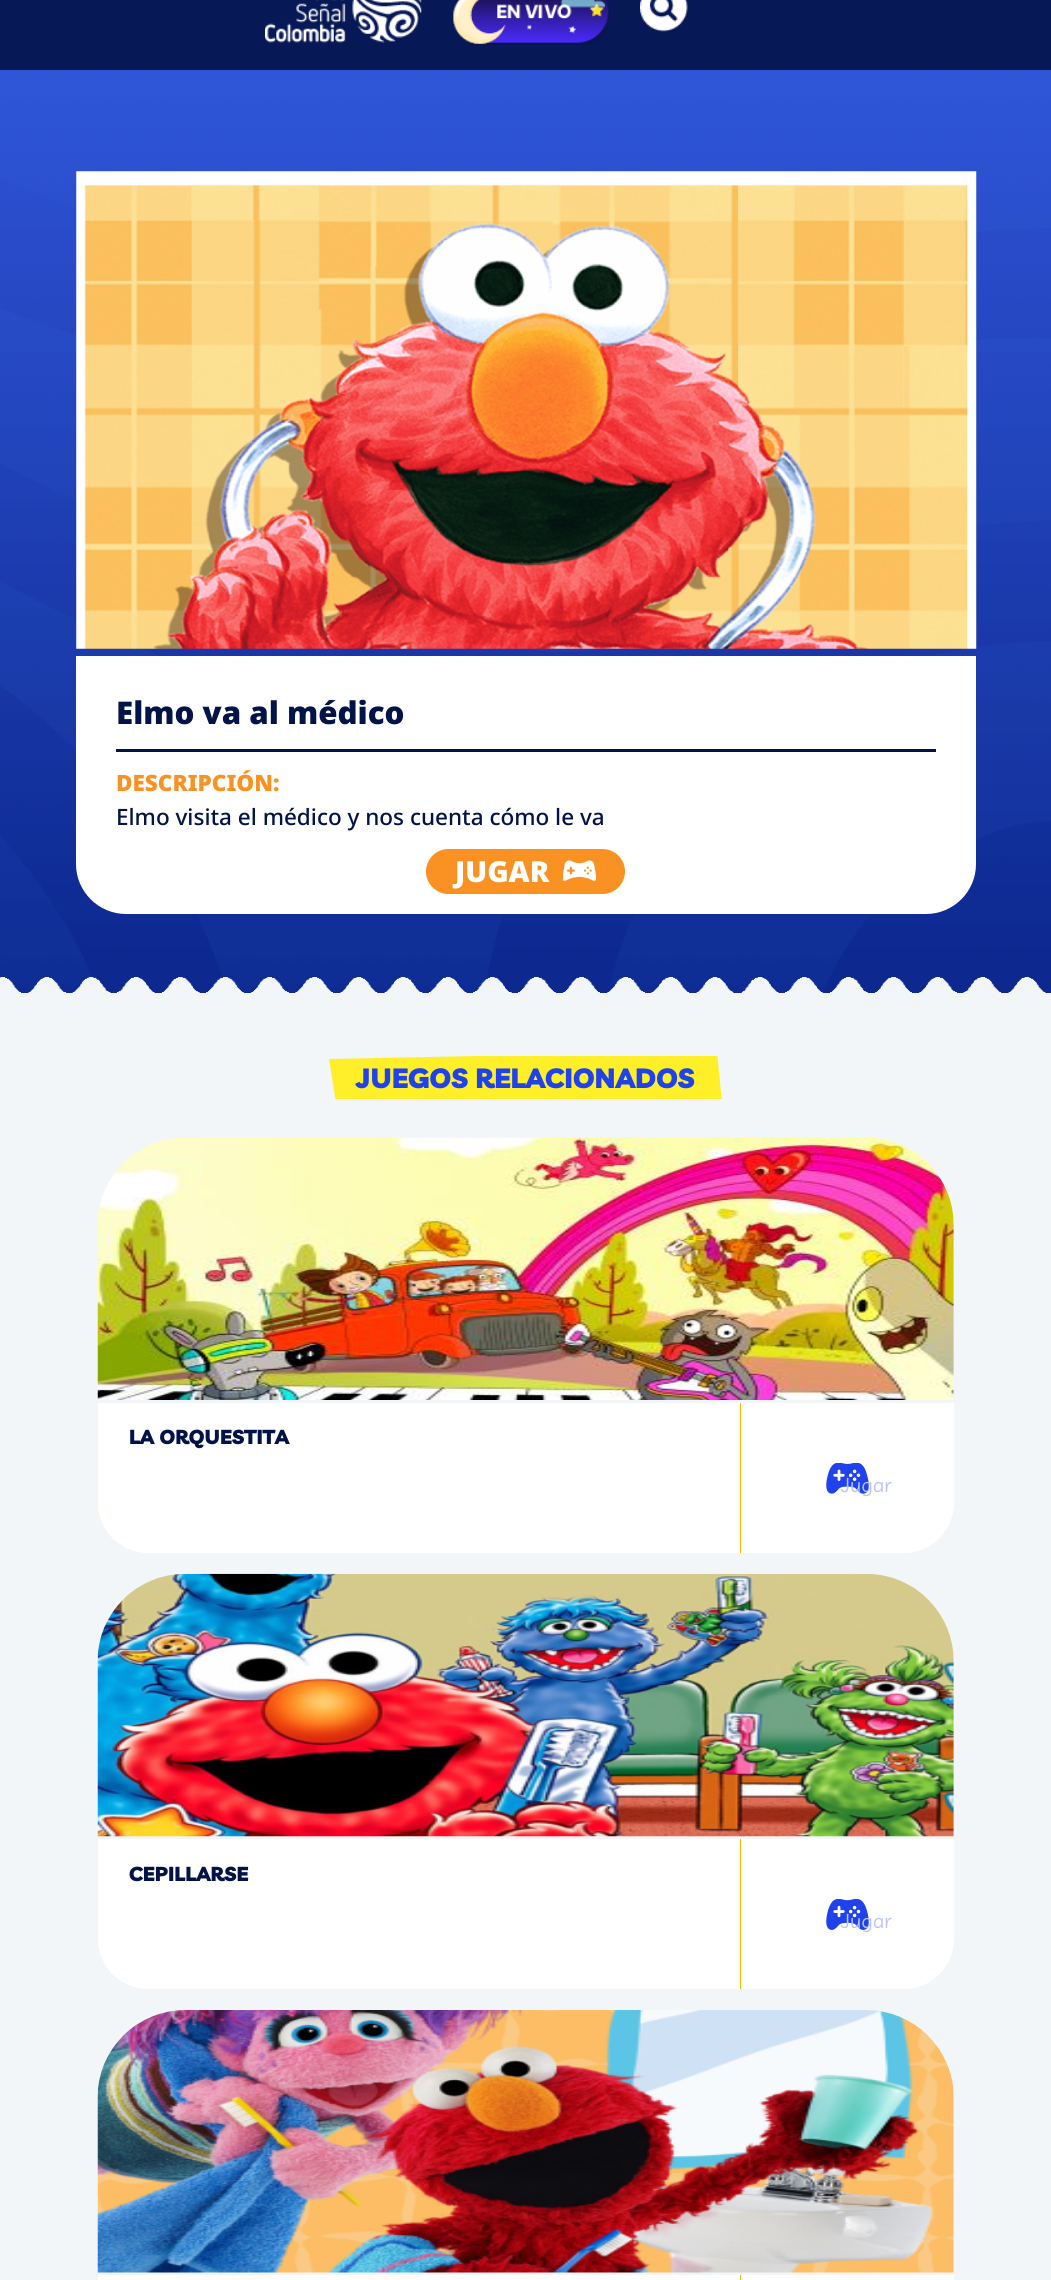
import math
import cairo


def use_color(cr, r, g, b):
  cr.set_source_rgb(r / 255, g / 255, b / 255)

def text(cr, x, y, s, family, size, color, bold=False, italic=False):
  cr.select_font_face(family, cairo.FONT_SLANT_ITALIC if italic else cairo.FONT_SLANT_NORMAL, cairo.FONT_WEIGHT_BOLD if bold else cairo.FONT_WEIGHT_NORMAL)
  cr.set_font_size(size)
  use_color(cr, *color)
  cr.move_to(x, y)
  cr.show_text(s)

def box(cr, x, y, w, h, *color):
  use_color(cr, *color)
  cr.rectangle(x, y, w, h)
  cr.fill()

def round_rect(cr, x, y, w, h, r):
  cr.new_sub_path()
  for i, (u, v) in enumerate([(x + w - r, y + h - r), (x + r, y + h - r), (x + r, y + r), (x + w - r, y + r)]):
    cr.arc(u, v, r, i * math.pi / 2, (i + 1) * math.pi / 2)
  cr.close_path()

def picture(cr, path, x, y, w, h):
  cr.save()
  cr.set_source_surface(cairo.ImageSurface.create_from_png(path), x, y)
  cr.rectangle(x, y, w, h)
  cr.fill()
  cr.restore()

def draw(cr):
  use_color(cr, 242, 246, 248)
  cr.paint()
  box(cr, 0, 0, 1051, 70, 7, 24, 86)
  picture(cr, "img_01.png", 265, 0, 157, 43)
  picture(cr, "img_02.png", 453, 0, 157, 45)
  picture(cr, "img_03.png", 640, 0, 48, 32)
  picture(cr, "img_04.png", 0, 70, 1051, 923)
  picture(cr, "img_05.png", 76, 171, 901, 478)
  use_color(cr, 255, 255, 255)
  cr.new_path()
  cr.move_to(76, 656)
  cr.line_to(976, 656)
  cr.line_to(976, 864)
  cr.curve_to(976, 891.5, 953.5, 914, 926, 914)
  cr.line_to(126, 914)
  cr.curve_to(98.5, 914, 76, 891.5, 76, 864)
  cr.close_path()
  cr.fill()
  box(cr, 116, 749, 820, 3, 2, 19, 72)
  use_color(cr, 249, 146, 35)
  round_rect(cr, 426, 849, 199, 45, 22.5)
  cr.fill()
  picture(cr, "img_06.png", 563, 860, 33, 21)
  cr.save()
  cr.rectangle(329, 1056, 394, 43)
  cr.clip()
  use_color(cr, 255, 239, 41)
  cr.new_path()
  cr.move_to(329, 1059)
  cr.line_to(717, 1051)
  cr.line_to(722, 1103)
  cr.line_to(336, 1103)
  cr.close_path()
  cr.fill()
  cr.restore()
  picture(cr, "img_07.png", 97, 1137, 857, 263)
  use_color(cr, 255, 255, 255)
  cr.new_path()
  cr.move_to(98, 1403)
  cr.line_to(954, 1403)
  cr.line_to(954, 1503)
  cr.curve_to(954, 1530.5, 931.5, 1553, 904, 1553)
  cr.line_to(148, 1553)
  cr.curve_to(120.5, 1553, 98, 1530.5, 98, 1503)
  cr.close_path()
  cr.fill()
  box(cr, 740, 1403, 1, 150, 255, 185, 0)
  picture(cr, "img_08.png", 826, 1463, 43, 31)
  picture(cr, "img_09.png", 97, 1573, 857, 264)
  use_color(cr, 255, 255, 255)
  cr.new_path()
  cr.move_to(98, 1839)
  cr.line_to(954, 1839)
  cr.line_to(954, 1939)
  cr.curve_to(954, 1966.5, 931.5, 1989, 904, 1989)
  cr.line_to(148, 1989)
  cr.curve_to(120.5, 1989, 98, 1966.5, 98, 1939)
  cr.close_path()
  cr.fill()
  box(cr, 740, 1839, 1, 150, 255, 185, 0)
  picture(cr, "img_10.png", 826, 1899, 43, 31)
  picture(cr, "img_11.png", 97, 2010, 857, 263)
  box(cr, 98, 2275, 856, 5, 255, 255, 255)
  box(cr, 740, 2275, 1, 5, 255, 185, 0)
  text(cr, 116, 724, "Elmo va al médico", "Noto Sans Black", 31.25, (2, 19, 72))
  text(cr, 116, 791, "DESCRIPCIÓN:", "Noto Sans Black", 22.5, (249, 146, 35))
  text(cr, 116, 825, "Elmo visita el médico y nos cuenta cómo le va", "Noto Sans Medium", 22.5, (2, 19, 72))
  text(cr, 455, 882, "JUGAR", "Noto Sans Black", 29, (255, 255, 255))
  text(cr, 356, 1088, "JUEGOS RELACIONADOS", "Livvic Black", 27.5, (32, 66, 237))
  text(cr, 129, 1444, "LA ORQUESTITA", "Livvic Black", 20, (2, 19, 72))
  text(cr, 841, 1492, "Jugar", "Livvic", 20, (186, 196, 249))
  text(cr, 129, 1881, "CEPILLARSE", "Livvic Black", 20, (2, 19, 72))
  text(cr, 841, 1928, "Jugar", "Livvic", 20, (186, 196, 249))


surface = cairo.ImageSurface(cairo.FORMAT_RGB24, 1051, 2280)
cr = cairo.Context(surface)
options = cairo.FontOptions()
options.set_hint_metrics(cairo.HINT_METRICS_OFF)
options.set_hint_style(cairo.HINT_STYLE_NONE)
cr.set_font_options(options)
cr.set_miter_limit(4)
draw(cr)
surface.write_to_png("out.png")
